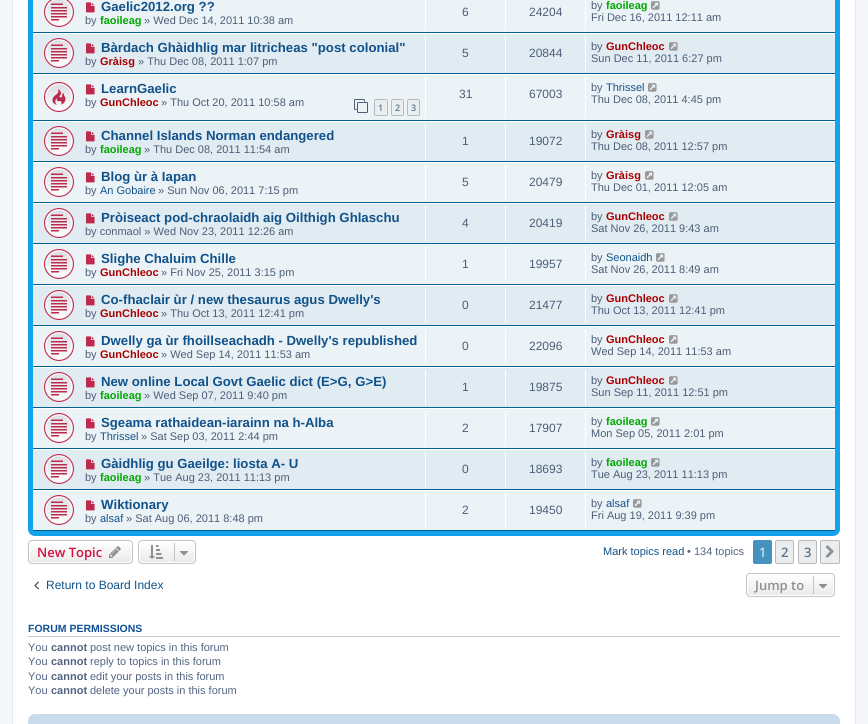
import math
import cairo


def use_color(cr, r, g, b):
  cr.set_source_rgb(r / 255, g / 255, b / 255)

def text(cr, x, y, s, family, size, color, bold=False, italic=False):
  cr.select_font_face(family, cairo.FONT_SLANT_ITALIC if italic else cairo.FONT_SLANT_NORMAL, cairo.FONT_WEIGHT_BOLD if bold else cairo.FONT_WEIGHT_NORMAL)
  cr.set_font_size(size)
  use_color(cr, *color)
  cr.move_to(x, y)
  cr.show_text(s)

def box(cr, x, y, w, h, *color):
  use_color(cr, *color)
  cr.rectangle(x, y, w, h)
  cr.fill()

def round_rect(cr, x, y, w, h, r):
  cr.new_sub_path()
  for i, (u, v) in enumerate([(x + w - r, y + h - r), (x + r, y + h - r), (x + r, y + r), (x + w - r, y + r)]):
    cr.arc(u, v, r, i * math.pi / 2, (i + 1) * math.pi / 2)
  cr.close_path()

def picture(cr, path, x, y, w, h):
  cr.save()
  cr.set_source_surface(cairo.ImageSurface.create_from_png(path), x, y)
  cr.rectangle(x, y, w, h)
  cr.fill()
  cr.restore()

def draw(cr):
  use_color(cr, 245, 247, 250)
  cr.paint()
  use_color(cr, 255, 255, 255)
  cr.rectangle(12.5, -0.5, 843, 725)
  cr.fill_preserve()
  use_color(cr, 230, 233, 237)
  cr.set_line_width(1)
  cr.stroke()
  gradient = cairo.LinearGradient(434, -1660, 434, 536)
  gradient.add_color_stop_rgba(0, 0.416, 0.808, 1, 1)
  gradient.add_color_stop_rgba(0, 0, 0.463, 0.694, 1)
  gradient.add_color_stop_rgba(0.04, 0.071, 0.639, 0.922, 1)
  gradient.add_color_stop_rgba(1, 0.071, 0.639, 0.922, 1)
  cr.set_source(gradient)
  round_rect(cr, 28, -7, 812, 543, 7)
  cr.fill()
  box(cr, 33, 0, 802, 32, 236, 243, 247)
  box(cr, 33, 32, 802, 1, 0, 96, 143)
  picture(cr, "img_01.png", 44, 0, 30, 27)
  picture(cr, "img_02.png", 86, 2, 9, 11)
  box(cr, 425, 0, 1, 30, 255, 255, 255)
  box(cr, 505, 0, 1, 30, 255, 255, 255)
  box(cr, 585, 0, 1, 30, 255, 255, 255)
  picture(cr, "img_03.png", 651, 1, 9, 9)
  box(cr, 33, 34, 802, 39, 225, 235, 242)
  box(cr, 33, 33, 802, 1, 255, 255, 255)
  box(cr, 33, 73, 802, 1, 0, 96, 143)
  picture(cr, "img_04.png", 44, 38, 30, 30)
  picture(cr, "img_05.png", 86, 43, 9, 11)
  box(cr, 425, 36, 1, 35, 255, 255, 255)
  box(cr, 505, 36, 1, 35, 255, 255, 255)
  box(cr, 585, 36, 1, 35, 255, 255, 255)
  picture(cr, "img_06.png", 669, 42, 9, 9)
  box(cr, 33, 75, 802, 45, 236, 243, 247)
  box(cr, 33, 74, 802, 1, 255, 255, 255)
  box(cr, 33, 120, 802, 1, 0, 96, 143)
  picture(cr, "img_07.png", 44, 82, 30, 30)
  picture(cr, "img_02.png", 86, 84, 9, 11)
  picture(cr, "img_08.png", 354, 99, 14, 14)
  use_color(cr, 236, 237, 238)
  round_rect(cr, 374.5, 99.5, 13, 16, 1.5)
  cr.fill_preserve()
  use_color(cr, 180, 186, 192)
  cr.stroke()
  use_color(cr, 236, 237, 238)
  round_rect(cr, 391.5, 99.5, 12, 16, 1.5)
  cr.fill_preserve()
  use_color(cr, 180, 186, 192)
  cr.stroke()
  use_color(cr, 236, 237, 238)
  round_rect(cr, 407.5, 99.5, 12, 16, 1.5)
  cr.fill_preserve()
  use_color(cr, 180, 186, 192)
  cr.stroke()
  box(cr, 425, 77, 1, 41, 255, 255, 255)
  box(cr, 505, 77, 1, 41, 255, 255, 255)
  box(cr, 585, 77, 1, 41, 255, 255, 255)
  picture(cr, "img_03.png", 648, 83, 9, 9)
  box(cr, 33, 122, 802, 39, 225, 235, 242)
  box(cr, 33, 121, 802, 1, 255, 255, 255)
  box(cr, 33, 161, 802, 1, 0, 96, 143)
  picture(cr, "img_04.png", 44, 126, 30, 30)
  picture(cr, "img_05.png", 86, 131, 9, 11)
  box(cr, 425, 124, 1, 35, 255, 255, 255)
  box(cr, 505, 124, 1, 35, 255, 255, 255)
  box(cr, 585, 124, 1, 35, 255, 255, 255)
  picture(cr, "img_06.png", 645, 130, 9, 9)
  box(cr, 33, 163, 802, 39, 236, 243, 247)
  box(cr, 33, 162, 802, 1, 255, 255, 255)
  box(cr, 33, 202, 802, 1, 0, 96, 143)
  picture(cr, "img_09.png", 44, 167, 30, 30)
  picture(cr, "img_02.png", 86, 172, 9, 11)
  box(cr, 425, 165, 1, 35, 255, 255, 255)
  box(cr, 505, 165, 1, 35, 255, 255, 255)
  box(cr, 585, 165, 1, 35, 255, 255, 255)
  picture(cr, "img_03.png", 645, 171, 9, 9)
  box(cr, 33, 204, 802, 39, 225, 235, 242)
  box(cr, 33, 203, 802, 1, 255, 255, 255)
  box(cr, 33, 243, 802, 1, 0, 96, 143)
  picture(cr, "img_04.png", 44, 208, 30, 30)
  picture(cr, "img_05.png", 86, 213, 9, 11)
  box(cr, 425, 206, 1, 35, 255, 255, 255)
  box(cr, 505, 206, 1, 35, 255, 255, 255)
  box(cr, 585, 206, 1, 35, 255, 255, 255)
  picture(cr, "img_06.png", 669, 212, 9, 9)
  box(cr, 33, 245, 802, 39, 236, 243, 247)
  box(cr, 33, 244, 802, 1, 255, 255, 255)
  box(cr, 33, 284, 802, 1, 0, 96, 143)
  picture(cr, "img_09.png", 44, 249, 30, 30)
  picture(cr, "img_02.png", 86, 254, 9, 11)
  box(cr, 425, 247, 1, 35, 255, 255, 255)
  box(cr, 505, 247, 1, 35, 255, 255, 255)
  box(cr, 585, 247, 1, 35, 255, 255, 255)
  picture(cr, "img_03.png", 656, 253, 9, 9)
  box(cr, 33, 286, 802, 39, 225, 235, 242)
  box(cr, 33, 285, 802, 1, 255, 255, 255)
  box(cr, 33, 325, 802, 1, 0, 96, 143)
  picture(cr, "img_04.png", 44, 290, 30, 30)
  picture(cr, "img_05.png", 86, 295, 9, 11)
  box(cr, 425, 288, 1, 35, 255, 255, 255)
  box(cr, 505, 288, 1, 35, 255, 255, 255)
  box(cr, 585, 288, 1, 35, 255, 255, 255)
  picture(cr, "img_06.png", 669, 294, 9, 9)
  box(cr, 33, 327, 802, 39, 236, 243, 247)
  box(cr, 33, 326, 802, 1, 255, 255, 255)
  box(cr, 33, 366, 802, 1, 0, 96, 143)
  picture(cr, "img_09.png", 44, 331, 30, 30)
  picture(cr, "img_02.png", 86, 336, 9, 11)
  box(cr, 425, 329, 1, 35, 255, 255, 255)
  box(cr, 505, 329, 1, 35, 255, 255, 255)
  box(cr, 585, 329, 1, 35, 255, 255, 255)
  picture(cr, "img_03.png", 669, 335, 9, 9)
  box(cr, 33, 368, 802, 39, 225, 235, 242)
  box(cr, 33, 367, 802, 1, 255, 255, 255)
  box(cr, 33, 407, 802, 1, 0, 96, 143)
  picture(cr, "img_04.png", 44, 372, 30, 30)
  picture(cr, "img_05.png", 86, 377, 9, 11)
  box(cr, 425, 370, 1, 35, 255, 255, 255)
  box(cr, 505, 370, 1, 35, 255, 255, 255)
  box(cr, 585, 370, 1, 35, 255, 255, 255)
  picture(cr, "img_06.png", 669, 376, 9, 9)
  box(cr, 33, 409, 802, 39, 236, 243, 247)
  box(cr, 33, 408, 802, 1, 255, 255, 255)
  box(cr, 33, 448, 802, 1, 0, 96, 143)
  picture(cr, "img_09.png", 44, 413, 30, 30)
  picture(cr, "img_02.png", 86, 418, 9, 11)
  box(cr, 425, 411, 1, 35, 255, 255, 255)
  box(cr, 505, 411, 1, 35, 255, 255, 255)
  box(cr, 585, 411, 1, 35, 255, 255, 255)
  picture(cr, "img_03.png", 651, 417, 9, 9)
  box(cr, 33, 450, 802, 39, 225, 235, 242)
  box(cr, 33, 449, 802, 1, 255, 255, 255)
  box(cr, 33, 489, 802, 1, 0, 96, 143)
  picture(cr, "img_04.png", 44, 454, 30, 30)
  picture(cr, "img_05.png", 86, 459, 9, 11)
  box(cr, 425, 452, 1, 35, 255, 255, 255)
  box(cr, 505, 452, 1, 35, 255, 255, 255)
  box(cr, 585, 452, 1, 35, 255, 255, 255)
  picture(cr, "img_06.png", 651, 458, 9, 9)
  box(cr, 33, 491, 802, 39, 236, 243, 247)
  box(cr, 33, 490, 802, 1, 255, 255, 255)
  box(cr, 33, 530, 802, 1, 0, 96, 143)
  picture(cr, "img_09.png", 44, 495, 30, 30)
  picture(cr, "img_02.png", 86, 500, 9, 11)
  box(cr, 425, 493, 1, 35, 255, 255, 255)
  box(cr, 505, 493, 1, 35, 255, 255, 255)
  box(cr, 585, 493, 1, 35, 255, 255, 255)
  picture(cr, "img_03.png", 633, 499, 9, 9)
  cr.save()
  round_rect(cr, 28, 540, 105, 24, 4)
  cr.clip()
  gradient = cairo.LinearGradient(81, 541, 81, 563)
  gradient.add_color_stop_rgba(0, 1, 1, 1, 1)
  gradient.add_color_stop_rgba(1, 0.914, 0.914, 0.914, 1)
  cr.set_source(gradient)
  cr.rectangle(28, 541, 105, 22)
  cr.fill()
  cr.restore()
  round_rect(cr, 29.5, 541.5, 102, 21, 2.5)
  cr.stroke()
  round_rect(cr, 28.5, 540.5, 104, 23, 3.5)
  use_color(cr, 199, 195, 191)
  cr.stroke()
  picture(cr, "img_10.png", 109, 546, 12, 12)
  cr.save()
  round_rect(cr, 138, 540, 58, 24, 4)
  cr.clip()
  gradient = cairo.LinearGradient(167, 541, 167, 563)
  gradient.add_color_stop_rgba(0, 1, 1, 1, 1)
  gradient.add_color_stop_rgba(1, 0.914, 0.914, 0.914, 1)
  cr.set_source(gradient)
  cr.rectangle(138, 541, 58, 22)
  cr.fill()
  cr.restore()
  round_rect(cr, 139.5, 541.5, 55, 21, 2.5)
  use_color(cr, 255, 255, 255)
  cr.stroke()
  round_rect(cr, 138.5, 540.5, 57, 23, 3.5)
  use_color(cr, 199, 195, 191)
  cr.stroke()
  picture(cr, "img_11.png", 149, 545, 14, 14)
  box(cr, 174, 543, 1, 18, 199, 195, 191)
  picture(cr, "img_12.png", 180, 551, 8, 5)
  use_color(cr, 70, 146, 191)
  round_rect(cr, 753.5, 540.5, 18, 23, 1.5)
  cr.fill_preserve()
  cr.stroke()
  use_color(cr, 236, 237, 238)
  round_rect(cr, 775.5, 540.5, 18, 23, 1.5)
  cr.fill_preserve()
  use_color(cr, 180, 186, 192)
  cr.stroke()
  use_color(cr, 236, 237, 238)
  round_rect(cr, 798.5, 540.5, 18, 23, 1.5)
  cr.fill_preserve()
  use_color(cr, 180, 186, 192)
  cr.stroke()
  use_color(cr, 236, 237, 238)
  round_rect(cr, 820.5, 540.5, 19, 23, 1.5)
  cr.fill_preserve()
  use_color(cr, 180, 186, 192)
  cr.stroke()
  picture(cr, "img_13.png", 825, 545, 9, 13)
  picture(cr, "img_14.png", 34, 581, 5, 9)
  cr.save()
  round_rect(cr, 746, 573, 89, 24, 4)
  cr.clip()
  gradient = cairo.LinearGradient(791, 574, 791, 596)
  gradient.add_color_stop_rgba(0, 1, 1, 1, 1)
  gradient.add_color_stop_rgba(1, 0.914, 0.914, 0.914, 1)
  cr.set_source(gradient)
  cr.rectangle(746, 574, 89, 22)
  cr.fill()
  cr.restore()
  round_rect(cr, 747.5, 574.5, 86, 21, 2.5)
  use_color(cr, 255, 255, 255)
  cr.stroke()
  round_rect(cr, 746.5, 573.5, 88, 23, 3.5)
  use_color(cr, 199, 195, 191)
  cr.stroke()
  box(cr, 813, 576, 1, 18, 199, 195, 191)
  picture(cr, "img_12.png", 819, 584, 8, 5)
  box(cr, 28, 636, 812, 1, 204, 204, 204)
  use_color(cr, 202, 220, 235)
  round_rect(cr, 28, 714, 812, 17, 7)
  cr.fill()
  text(cr, 101, 11, "Gaelic2012.org ??", "Liberation Sans", 13.2, (16, 82, 137), bold=True)
  text(cr, 85, 24, "by", "Liberation Sans", 11, (76, 93, 119))
  text(cr, 100, 24, "faoileag", "Liberation Sans", 11, (0, 170, 0), bold=True)
  text(cr, 144, 24, "» Wed Dec 14, 2011 10:38 am", "Liberation Sans", 11, (76, 93, 119))
  text(cr, 462, 16, "6", "Liberation Sans", 12, (76, 93, 119))
  text(cr, 529, 16, "24204", "Liberation Sans", 12, (76, 93, 119))
  text(cr, 591, 9, "by", "Liberation Sans", 11, (76, 93, 119))
  text(cr, 606, 9, "faoileag", "Liberation Sans", 11, (0, 170, 0), bold=True)
  text(cr, 591, 21, "Fri Dec 16, 2011 12:11 am", "Liberation Sans", 11, (76, 93, 119))
  text(cr, 101, 52, "Bàrdach Ghàidhlig mar litricheas \"post colonial\"", "Liberation Sans", 13.2, (16, 82, 137), bold=True)
  text(cr, 85, 65, "by", "Liberation Sans", 11, (76, 93, 119))
  text(cr, 100, 65, "Gràisg", "Liberation Sans", 11, (170, 0, 0), bold=True)
  text(cr, 138, 65, "» Thu Dec 08, 2011 1:07 pm", "Liberation Sans", 11, (76, 93, 119))
  text(cr, 462, 57, "5", "Liberation Sans", 12, (76, 93, 119))
  text(cr, 529, 57, "20844", "Liberation Sans", 12, (76, 93, 119))
  text(cr, 591, 50, "by", "Liberation Sans", 11, (76, 93, 119))
  text(cr, 606, 50, "GunChleoc", "Liberation Sans", 11, (170, 0, 0), bold=True)
  text(cr, 591, 62, "Sun Dec 11, 2011 6:27 pm", "Liberation Sans", 11, (76, 93, 119))
  text(cr, 101, 93, "LearnGaelic", "Liberation Sans", 13.2, (16, 82, 137), bold=True)
  text(cr, 85, 106, "by", "Liberation Sans", 11, (76, 93, 119))
  text(cr, 100, 106, "GunChleoc", "Liberation Sans", 11, (170, 0, 0), bold=True)
  text(cr, 161, 106, "» Thu Oct 20, 2011 10:58 am", "Liberation Sans", 11, (76, 93, 119))
  text(cr, 378, 111, "1", "Open Sans SemiBold", 9, (92, 117, 140))
  text(cr, 395, 111, "2", "Open Sans SemiBold", 9, (92, 117, 140))
  text(cr, 411, 111, "3", "Open Sans SemiBold", 9, (92, 117, 140))
  text(cr, 459, 98, "31", "Liberation Sans", 12, (76, 93, 119))
  text(cr, 529, 98, "67003", "Liberation Sans", 12, (76, 93, 119))
  text(cr, 591, 91, "by", "Liberation Sans", 11, (76, 93, 119))
  text(cr, 606, 91, "Thrissel", "Liberation Sans", 11, (16, 82, 137))
  text(cr, 591, 103, "Thu Dec 08, 2011 4:45 pm", "Liberation Sans", 11, (76, 93, 119))
  text(cr, 101, 140, "Channel Islands Norman endangered", "Liberation Sans", 13.2, (16, 82, 137), bold=True)
  text(cr, 85, 153, "by", "Liberation Sans", 11, (76, 93, 119))
  text(cr, 100, 153, "faoileag", "Liberation Sans", 11, (0, 170, 0), bold=True)
  text(cr, 144, 153, "» Thu Dec 08, 2011 11:54 am", "Liberation Sans", 11, (76, 93, 119))
  text(cr, 462, 145, "1", "Liberation Sans", 12, (76, 93, 119))
  text(cr, 529, 145, "19072", "Liberation Sans", 12, (76, 93, 119))
  text(cr, 591, 138, "by", "Liberation Sans", 11, (76, 93, 119))
  text(cr, 606, 138, "Gràisg", "Liberation Sans", 11, (170, 0, 0), bold=True)
  text(cr, 591, 150, "Thu Dec 08, 2011 12:57 pm", "Liberation Sans", 11, (76, 93, 119))
  text(cr, 101, 181, "Blog ùr à Iapan", "Liberation Sans", 13.2, (16, 82, 137), bold=True)
  text(cr, 85, 194, "by", "Liberation Sans", 11, (76, 93, 119))
  text(cr, 100, 194, "An Gobaire", "Liberation Sans", 11, (16, 82, 137))
  text(cr, 158, 194, "» Sun Nov 06, 2011 7:15 pm", "Liberation Sans", 11, (76, 93, 119))
  text(cr, 462, 186, "5", "Liberation Sans", 12, (76, 93, 119))
  text(cr, 529, 186, "20479", "Liberation Sans", 12, (76, 93, 119))
  text(cr, 591, 179, "by", "Liberation Sans", 11, (76, 93, 119))
  text(cr, 606, 179, "Gràisg", "Liberation Sans", 11, (170, 0, 0), bold=True)
  text(cr, 591, 191, "Thu Dec 01, 2011 12:05 am", "Liberation Sans", 11, (76, 93, 119))
  text(cr, 101, 222, "Pròiseact pod-chraolaidh aig Oilthigh Ghlaschu", "Liberation Sans", 13.2, (16, 82, 137), bold=True)
  text(cr, 85, 235, "by conmaol » Wed Nov 23, 2011 12:26 am", "Liberation Sans", 11, (76, 93, 119))
  text(cr, 462, 227, "4", "Liberation Sans", 12, (76, 93, 119))
  text(cr, 529, 227, "20419", "Liberation Sans", 12, (76, 93, 119))
  text(cr, 591, 220, "by", "Liberation Sans", 11, (76, 93, 119))
  text(cr, 606, 220, "GunChleoc", "Liberation Sans", 11, (170, 0, 0), bold=True)
  text(cr, 591, 232, "Sat Nov 26, 2011 9:43 am", "Liberation Sans", 11, (76, 93, 119))
  text(cr, 101, 263, "Slighe Chaluim Chille", "Liberation Sans", 13.2, (16, 82, 137), bold=True)
  text(cr, 85, 276, "by", "Liberation Sans", 11, (76, 93, 119))
  text(cr, 100, 276, "GunChleoc", "Liberation Sans", 11, (170, 0, 0), bold=True)
  text(cr, 161, 276, "» Fri Nov 25, 2011 3:15 pm", "Liberation Sans", 11, (76, 93, 119))
  text(cr, 462, 268, "1", "Liberation Sans", 12, (76, 93, 119))
  text(cr, 529, 268, "19957", "Liberation Sans", 12, (76, 93, 119))
  text(cr, 591, 261, "by", "Liberation Sans", 11, (76, 93, 119))
  text(cr, 606, 261, "Seonaidh", "Liberation Sans", 11, (16, 82, 137))
  text(cr, 591, 273, "Sat Nov 26, 2011 8:49 am", "Liberation Sans", 11, (76, 93, 119))
  text(cr, 101, 304, "Co-fhaclair ùr / new thesaurus agus Dwelly's", "Liberation Sans", 13.2, (16, 82, 137), bold=True)
  text(cr, 85, 317, "by", "Liberation Sans", 11, (76, 93, 119))
  text(cr, 100, 317, "GunChleoc", "Liberation Sans", 11, (170, 0, 0), bold=True)
  text(cr, 161, 317, "» Thu Oct 13, 2011 12:41 pm", "Liberation Sans", 11, (76, 93, 119))
  text(cr, 462, 309, "0", "Liberation Sans", 12, (76, 93, 119))
  text(cr, 529, 309, "21477", "Liberation Sans", 12, (76, 93, 119))
  text(cr, 591, 302, "by", "Liberation Sans", 11, (76, 93, 119))
  text(cr, 606, 302, "GunChleoc", "Liberation Sans", 11, (170, 0, 0), bold=True)
  text(cr, 591, 314, "Thu Oct 13, 2011 12:41 pm", "Liberation Sans", 11, (76, 93, 119))
  text(cr, 101, 345, "Dwelly ga ùr fhoillseachadh - Dwelly's republished", "Liberation Sans", 13.2, (16, 82, 137), bold=True)
  text(cr, 85, 358, "by", "Liberation Sans", 11, (76, 93, 119))
  text(cr, 100, 358, "GunChleoc", "Liberation Sans", 11, (170, 0, 0), bold=True)
  text(cr, 161, 358, "» Wed Sep 14, 2011 11:53 am", "Liberation Sans", 11, (76, 93, 119))
  text(cr, 462, 350, "0", "Liberation Sans", 12, (76, 93, 119))
  text(cr, 529, 350, "22096", "Liberation Sans", 12, (76, 93, 119))
  text(cr, 591, 343, "by", "Liberation Sans", 11, (76, 93, 119))
  text(cr, 606, 343, "GunChleoc", "Liberation Sans", 11, (170, 0, 0), bold=True)
  text(cr, 591, 355, "Wed Sep 14, 2011 11:53 am", "Liberation Sans", 11, (76, 93, 119))
  text(cr, 101, 386, "New online Local Govt Gaelic dict (E>G, G>E)", "Liberation Sans", 13.2, (16, 82, 137), bold=True)
  text(cr, 85, 399, "by", "Liberation Sans", 11, (76, 93, 119))
  text(cr, 100, 399, "faoileag", "Liberation Sans", 11, (0, 170, 0), bold=True)
  text(cr, 144, 399, "» Wed Sep 07, 2011 9:40 pm", "Liberation Sans", 11, (76, 93, 119))
  text(cr, 462, 391, "1", "Liberation Sans", 12, (76, 93, 119))
  text(cr, 529, 391, "19875", "Liberation Sans", 12, (76, 93, 119))
  text(cr, 591, 384, "by", "Liberation Sans", 11, (76, 93, 119))
  text(cr, 606, 384, "GunChleoc", "Liberation Sans", 11, (170, 0, 0), bold=True)
  text(cr, 591, 396, "Sun Sep 11, 2011 12:51 pm", "Liberation Sans", 11, (76, 93, 119))
  text(cr, 101, 427, "Sgeama rathaidean-iarainn na h-Alba", "Liberation Sans", 13.2, (16, 82, 137), bold=True)
  text(cr, 85, 440, "by", "Liberation Sans", 11, (76, 93, 119))
  text(cr, 100, 440, "Thrissel", "Liberation Sans", 11, (16, 82, 137))
  text(cr, 141, 440, "» Sat Sep 03, 2011 2:44 pm", "Liberation Sans", 11, (76, 93, 119))
  text(cr, 462, 432, "2", "Liberation Sans", 12, (76, 93, 119))
  text(cr, 529, 432, "17907", "Liberation Sans", 12, (76, 93, 119))
  text(cr, 591, 425, "by", "Liberation Sans", 11, (76, 93, 119))
  text(cr, 606, 425, "faoileag", "Liberation Sans", 11, (0, 170, 0), bold=True)
  text(cr, 591, 437, "Mon Sep 05, 2011 2:01 pm", "Liberation Sans", 11, (76, 93, 119))
  text(cr, 101, 468, "Gàidhlig gu Gaeilge: liosta A- U", "Liberation Sans", 13.2, (16, 82, 137), bold=True)
  text(cr, 85, 481, "by", "Liberation Sans", 11, (76, 93, 119))
  text(cr, 100, 481, "faoileag", "Liberation Sans", 11, (0, 170, 0), bold=True)
  text(cr, 144, 481, "» Tue Aug 23, 2011 11:13 pm", "Liberation Sans", 11, (76, 93, 119))
  text(cr, 462, 473, "0", "Liberation Sans", 12, (76, 93, 119))
  text(cr, 529, 473, "18693", "Liberation Sans", 12, (76, 93, 119))
  text(cr, 591, 466, "by", "Liberation Sans", 11, (76, 93, 119))
  text(cr, 606, 466, "faoileag", "Liberation Sans", 11, (0, 170, 0), bold=True)
  text(cr, 591, 478, "Tue Aug 23, 2011 11:13 pm", "Liberation Sans", 11, (76, 93, 119))
  text(cr, 101, 509, "Wiktionary", "Liberation Sans", 13.2, (16, 82, 137), bold=True)
  text(cr, 85, 522, "by", "Liberation Sans", 11, (76, 93, 119))
  text(cr, 100, 522, "alsaf", "Liberation Sans", 11, (16, 82, 137))
  text(cr, 126, 522, "» Sat Aug 06, 2011 8:48 pm", "Liberation Sans", 11, (76, 93, 119))
  text(cr, 462, 514, "2", "Liberation Sans", 12, (76, 93, 119))
  text(cr, 529, 514, "19450", "Liberation Sans", 12, (76, 93, 119))
  text(cr, 591, 507, "by", "Liberation Sans", 11, (76, 93, 119))
  text(cr, 606, 507, "alsaf", "Liberation Sans", 11, (16, 82, 137))
  text(cr, 591, 519, "Fri Aug 19, 2011 9:39 pm", "Liberation Sans", 11, (76, 93, 119))
  text(cr, 37, 557, "New Topic", "Open Sans SemiBold", 13, (211, 17, 65))
  text(cr, 603, 555, "Mark topics read", "Liberation Sans", 11, (16, 82, 137))
  text(cr, 687, 555, "• 134 topics", "Liberation Sans", 11, (83, 100, 130))
  text(cr, 759, 557, "1", "Open Sans", 13, (255, 255, 255))
  text(cr, 781, 557, "2", "Open Sans SemiBold", 13, (92, 117, 140))
  text(cr, 804, 557, "3", "Open Sans SemiBold", 13, (92, 117, 140))
  text(cr, 46, 589, "Return to Board Index", "Liberation Sans", 12, (16, 82, 137))
  text(cr, 755, 590, "Jump to", "Open Sans SemiBold", 13, (143, 143, 143))
  text(cr, 28, 632, "FORUM PERMISSIONS", "Liberation Sans", 10.5, (17, 80, 152), bold=True)
  text(cr, 28, 651, "You", "Liberation Sans", 11, (83, 100, 130))
  text(cr, 51, 651, "cannot", "Liberation Sans", 11, (83, 100, 130), bold=True)
  text(cr, 90, 651, "post new topics in this forum", "Liberation Sans", 11, (83, 100, 130))
  text(cr, 28, 665, "You", "Liberation Sans", 11, (83, 100, 130))
  text(cr, 51, 665, "cannot", "Liberation Sans", 11, (83, 100, 130), bold=True)
  text(cr, 90, 665, "reply to topics in this forum", "Liberation Sans", 11, (83, 100, 130))
  text(cr, 28, 680, "You", "Liberation Sans", 11, (83, 100, 130))
  text(cr, 51, 680, "cannot", "Liberation Sans", 11, (83, 100, 130), bold=True)
  text(cr, 90, 680, "edit your posts in this forum", "Liberation Sans", 11, (83, 100, 130))
  text(cr, 28, 694, "You", "Liberation Sans", 11, (83, 100, 130))
  text(cr, 51, 694, "cannot", "Liberation Sans", 11, (83, 100, 130), bold=True)
  text(cr, 90, 694, "delete your posts in this forum", "Liberation Sans", 11, (83, 100, 130))


surface = cairo.ImageSurface(cairo.FORMAT_RGB24, 868, 724)
cr = cairo.Context(surface)
options = cairo.FontOptions()
options.set_hint_metrics(cairo.HINT_METRICS_OFF)
options.set_hint_style(cairo.HINT_STYLE_NONE)
cr.set_font_options(options)
cr.set_miter_limit(4)
draw(cr)
surface.write_to_png("out.png")
